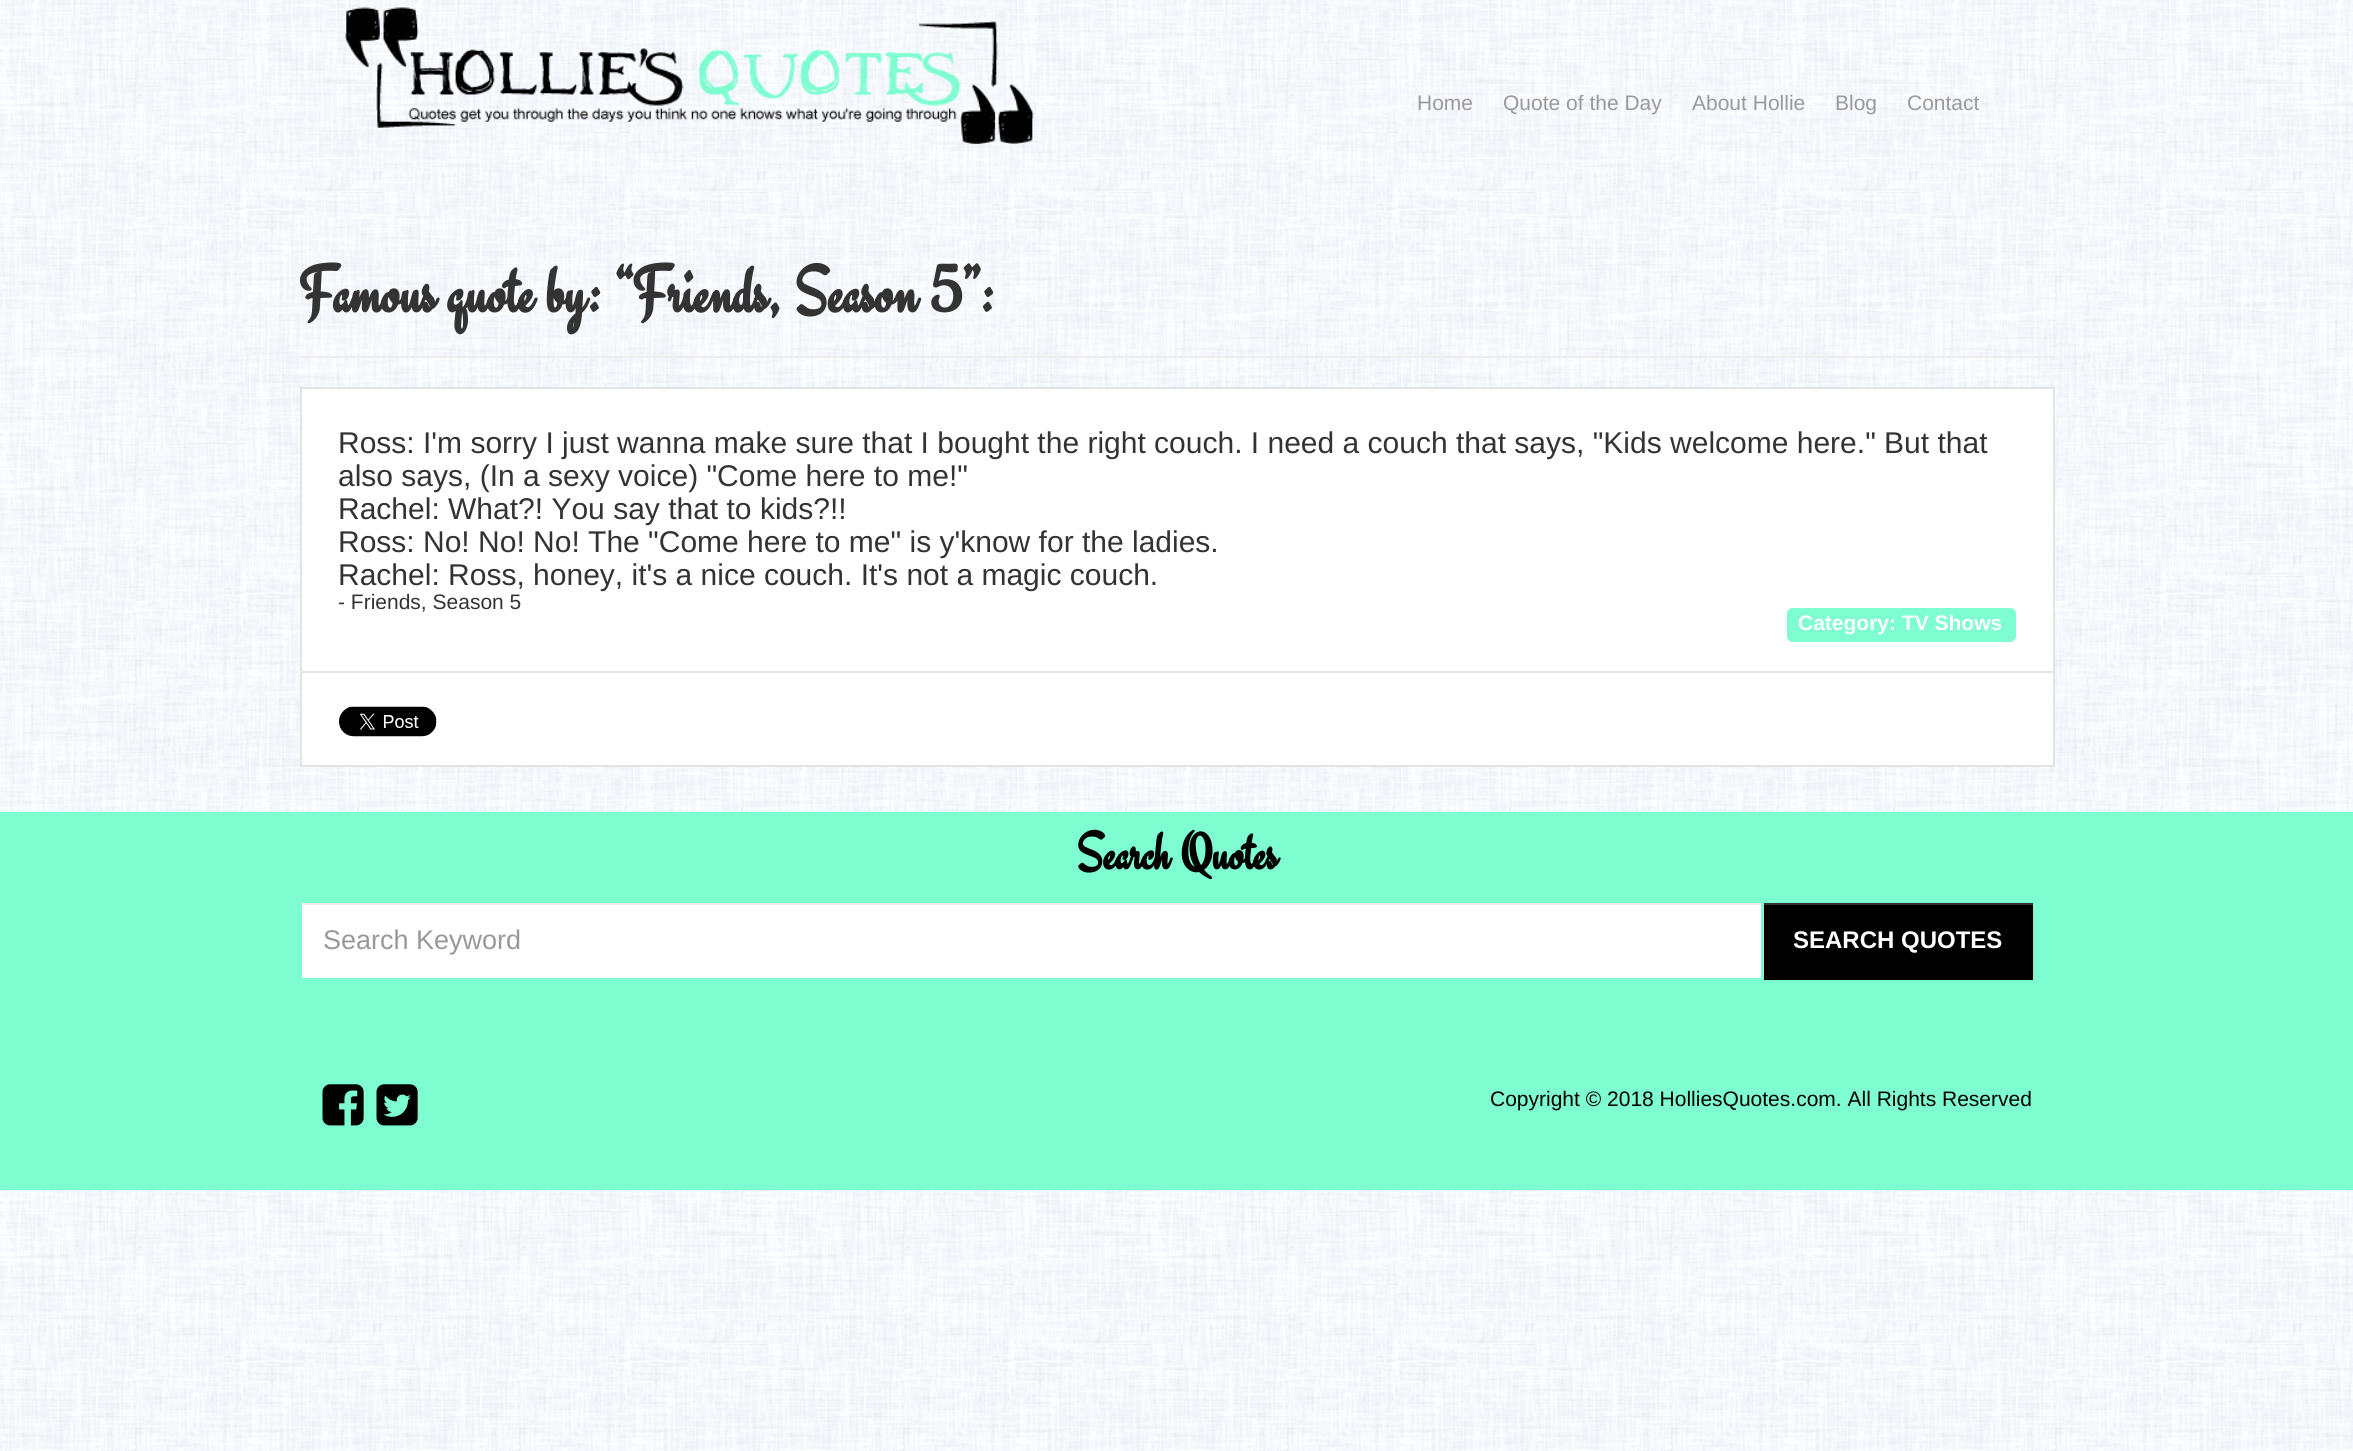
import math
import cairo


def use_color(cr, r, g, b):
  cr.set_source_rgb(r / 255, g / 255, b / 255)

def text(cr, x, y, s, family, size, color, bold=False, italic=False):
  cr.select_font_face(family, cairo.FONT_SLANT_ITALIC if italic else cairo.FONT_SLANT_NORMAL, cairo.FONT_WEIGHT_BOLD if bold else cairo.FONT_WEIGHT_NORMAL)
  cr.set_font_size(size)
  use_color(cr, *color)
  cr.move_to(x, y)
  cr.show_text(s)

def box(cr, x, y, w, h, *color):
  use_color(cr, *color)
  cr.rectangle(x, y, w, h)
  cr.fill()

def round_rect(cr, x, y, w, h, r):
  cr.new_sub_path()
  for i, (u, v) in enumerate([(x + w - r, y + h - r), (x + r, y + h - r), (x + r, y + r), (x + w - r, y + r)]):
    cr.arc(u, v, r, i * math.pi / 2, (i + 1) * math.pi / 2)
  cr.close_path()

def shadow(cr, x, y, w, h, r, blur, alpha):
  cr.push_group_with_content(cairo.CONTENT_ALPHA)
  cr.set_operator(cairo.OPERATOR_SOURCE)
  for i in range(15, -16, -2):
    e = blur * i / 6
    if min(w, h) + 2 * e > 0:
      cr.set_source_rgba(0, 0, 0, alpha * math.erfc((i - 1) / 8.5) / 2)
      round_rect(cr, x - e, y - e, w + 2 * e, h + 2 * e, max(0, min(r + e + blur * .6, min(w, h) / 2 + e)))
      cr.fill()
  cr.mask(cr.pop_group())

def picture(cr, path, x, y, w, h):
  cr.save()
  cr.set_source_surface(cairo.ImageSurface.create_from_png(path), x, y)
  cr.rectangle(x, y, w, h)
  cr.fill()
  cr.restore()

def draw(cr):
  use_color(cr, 255, 255, 255)
  cr.paint()
  picture(cr, "img_01.png", 0, 0, 2353, 1451)
  picture(cr, "img_02.png", 345, 7, 689, 137)
  box(cr, 300, 356, 1755, 2, 238, 238, 238)
  use_color(cr, 255, 255, 255)
  cr.rectangle(301, 388, 1753, 378)
  cr.fill_preserve()
  use_color(cr, 228, 228, 228)
  cr.stroke()
  box(cr, 302, 671, 1752, 2, 228, 228, 228)
  use_color(cr, 126, 253, 208)
  cr.new_path()
  cr.move_to(1793, 608)
  cr.line_to(1902, 608)
  cr.line_to(1902, 642)
  cr.line_to(1793, 642)
  cr.curve_to(1789.5, 642, 1787, 639.5, 1787, 636)
  cr.line_to(1787, 614)
  cr.curve_to(1787, 610.5, 1789.5, 608, 1793, 608)
  cr.close_path()
  cr.fill()
  cr.new_path()
  cr.move_to(1902, 608)
  cr.line_to(2010, 608)
  cr.curve_to(2013.5, 608, 2016, 610.5, 2016, 614)
  cr.line_to(2016, 636)
  cr.curve_to(2016, 639.5, 2013.5, 642, 2010, 642)
  cr.line_to(1902, 642)
  cr.close_path()
  cr.fill()
  picture(cr, "img_03.png", 339, 706, 98, 31)
  box(cr, 0, 812, 2353, 378, 126, 253, 208)
  box(cr, 302, 905, 1459, 73, 255, 255, 255)
  box(cr, 302, 903, 1459, 2, 236, 236, 236)
  use_color(cr, 0, 0, 0)
  shadow(cr, 1764, 905, 269, 76, 0, 1.5, 0.05)
  box(cr, 1764, 905, 269, 75, 0, 0, 0)
  box(cr, 1764, 903, 269, 2, 51, 51, 51)
  picture(cr, "img_04.png", 322, 1084, 42, 42)
  picture(cr, "img_05.png", 376, 1084, 42, 42)
  text(cr, 1417, 110, "Home", "Liberation Sans", 21, (153, 153, 153))
  text(cr, 1503, 110, "Quote of the Day", "Liberation Sans", 21, (153, 153, 153))
  text(cr, 1692, 110, "About Hollie", "Liberation Sans", 21, (153, 153, 153))
  text(cr, 1835, 110, "Blog", "Liberation Sans", 21, (153, 153, 153))
  text(cr, 1907, 110, "Contact", "Liberation Sans", 21, (153, 153, 153))
  text(cr, 299, 312, "Famous quote by: “Friends, Season 5”:", "Engagement", 67.5, (51, 51, 51), bold=True)
  text(cr, 338, 453, "Ross: I'm sorry I just wanna make sure that I bought the right couch. I need a couch that says, \"Kids welcome here.\" But that", "Liberation Sans", 30, (51, 51, 51))
  text(cr, 338, 486, "also says, (In a sexy voice) \"Come here to me!\"", "Liberation Sans", 30, (51, 51, 51))
  text(cr, 338, 519, "Rachel: What?! You say that to kids?!!", "Liberation Sans", 30, (51, 51, 51))
  text(cr, 338, 552, "Ross: No! No! No! The \"Come here to me\" is y'know for the ladies.", "Liberation Sans", 30, (51, 51, 51))
  text(cr, 338, 585, "Rachel: Ross, honey, it's a nice couch. It's not a magic couch.", "Liberation Sans", 30, (51, 51, 51))
  text(cr, 338, 609, "- Friends, Season 5", "Liberation Sans", 21, (51, 51, 51))
  text(cr, 1798, 630, "Category: TV Shows", "Liberation Sans", 21, (255, 255, 255), bold=True)
  text(cr, 1076, 869, "Search Quotes", "Engagement", 54, (0, 0, 0), bold=True)
  text(cr, 323, 949, "Search Keyword", "Liberation Sans", 27, (153, 153, 153))
  text(cr, 1793, 948, "SEARCH QUOTES", "Liberation Sans", 24, (255, 255, 255), bold=True)
  text(cr, 1490, 1106, "Copyright © 2018 HolliesQuotes.com. All Rights Reserved", "Liberation Sans", 21, (0, 0, 0))


surface = cairo.ImageSurface(cairo.FORMAT_RGB24, 2353, 1451)
cr = cairo.Context(surface)
options = cairo.FontOptions()
options.set_hint_metrics(cairo.HINT_METRICS_OFF)
options.set_hint_style(cairo.HINT_STYLE_NONE)
cr.set_font_options(options)
cr.set_miter_limit(4)
draw(cr)
surface.write_to_png("out.png")
